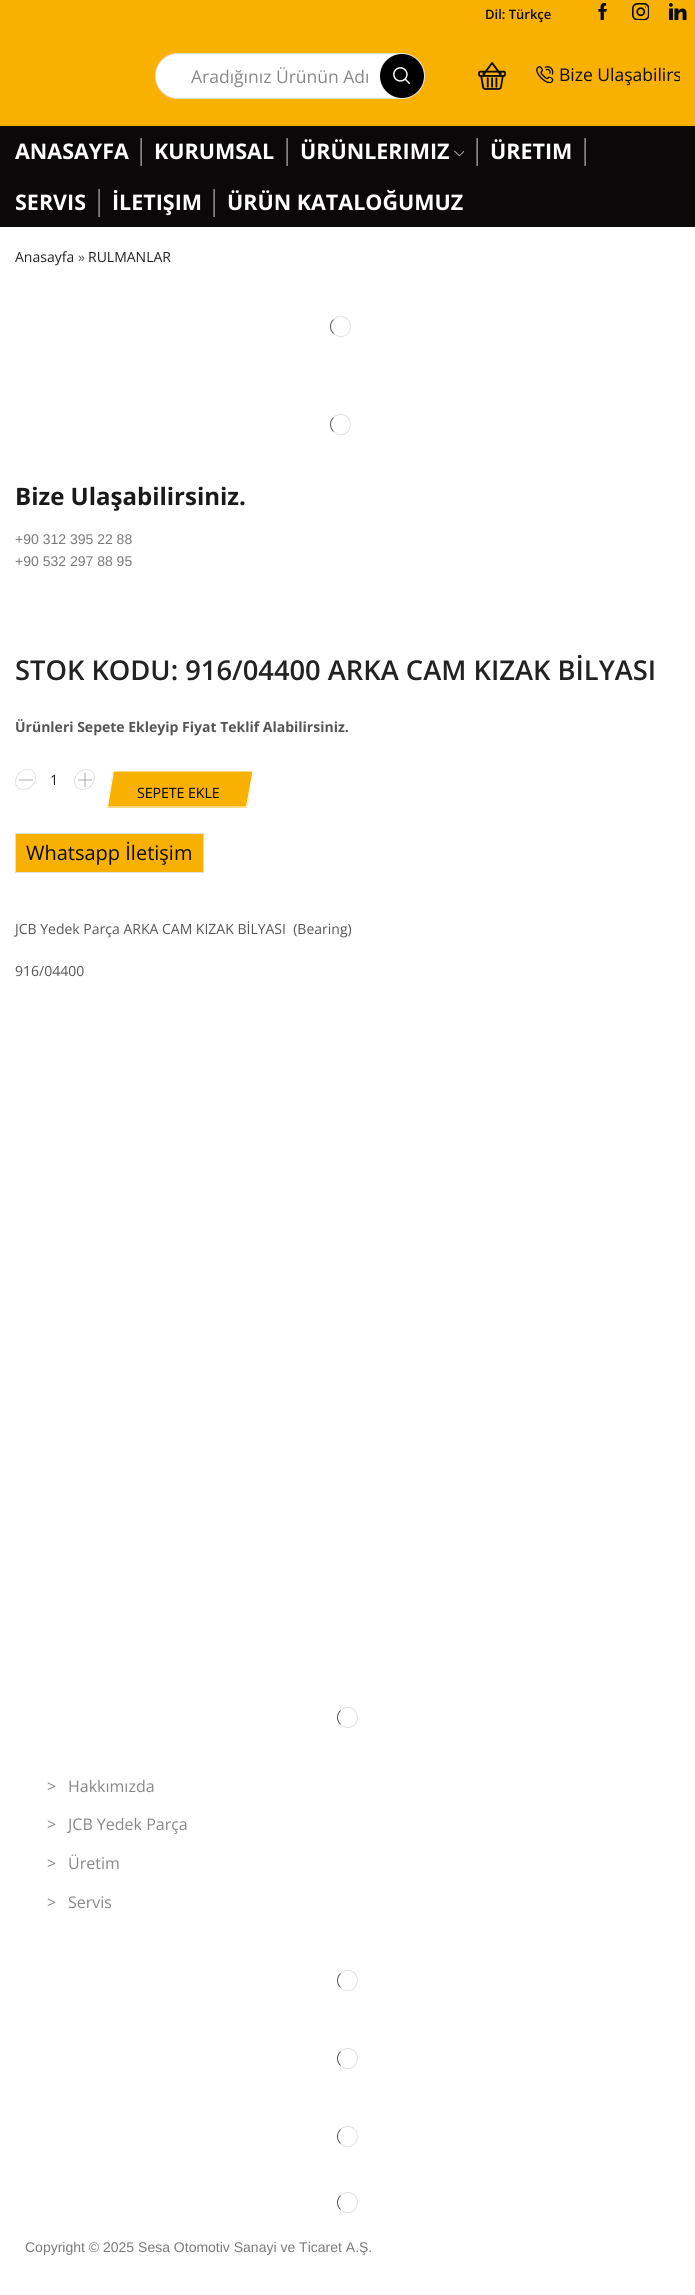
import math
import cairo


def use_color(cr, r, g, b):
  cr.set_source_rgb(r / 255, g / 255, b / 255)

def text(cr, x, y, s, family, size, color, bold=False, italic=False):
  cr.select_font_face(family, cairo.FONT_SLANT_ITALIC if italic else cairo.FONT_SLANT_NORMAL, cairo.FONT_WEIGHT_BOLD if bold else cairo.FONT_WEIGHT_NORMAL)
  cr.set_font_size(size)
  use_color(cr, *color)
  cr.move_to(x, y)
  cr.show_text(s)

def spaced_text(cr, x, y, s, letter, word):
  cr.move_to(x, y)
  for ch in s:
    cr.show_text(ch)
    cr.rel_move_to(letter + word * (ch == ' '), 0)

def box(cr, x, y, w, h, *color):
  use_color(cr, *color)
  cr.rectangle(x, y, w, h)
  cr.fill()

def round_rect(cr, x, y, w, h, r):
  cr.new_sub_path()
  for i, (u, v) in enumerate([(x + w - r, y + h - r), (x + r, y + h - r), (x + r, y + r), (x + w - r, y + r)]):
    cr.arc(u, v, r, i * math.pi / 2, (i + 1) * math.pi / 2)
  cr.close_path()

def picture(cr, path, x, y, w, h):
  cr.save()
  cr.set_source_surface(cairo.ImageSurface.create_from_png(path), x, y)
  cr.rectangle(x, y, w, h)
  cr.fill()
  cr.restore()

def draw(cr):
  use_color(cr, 255, 255, 255)
  cr.paint()
  box(cr, 0, 0, 695, 126, 249, 177, 1)
  picture(cr, "img_01.png", 598, 3, 10, 17)
  picture(cr, "img_02.png", 632, 3, 17, 17)
  picture(cr, "img_03.png", 669, 3, 18, 17)
  use_color(cr, 255, 255, 255)
  round_rect(cr, 155.5, 53.5, 269, 45, 22.5)
  cr.fill_preserve()
  use_color(cr, 225, 225, 225)
  cr.set_line_width(1)
  cr.stroke()
  use_color(cr, 0, 0, 0)
  cr.arc(402, 76, 22, 0, 2 * math.pi)
  cr.fill()
  picture(cr, "img_04.png", 393, 67, 17, 17)
  picture(cr, "img_05.png", 478, 62, 28, 28)
  picture(cr, "img_06.png", 536, 66, 18, 17)
  box(cr, 0, 126, 695, 101, 10, 8, 8)
  picture(cr, "img_07.png", 454, 150, 10, 6)
  cr.new_path()
  cr.move_to(333.5, 319.5)
  cr.curve_to(336, 317, 339, 316, 342.5, 316.5)
  cr.curve_to(354, 319, 352.5, 336.5, 340.5, 336.5)
  cr.curve_to(338, 336.5, 335.5, 335.5, 333.5, 333.5)
  use_color(cr, 225, 225, 225)
  cr.stroke()
  cr.new_path()
  cr.move_to(333.5, 333.5)
  cr.curve_to(329.5, 329.5, 329.5, 323.5, 333.5, 319.5)
  use_color(cr, 85, 85, 85)
  cr.stroke()
  cr.new_path()
  cr.move_to(333.5, 417.5)
  cr.curve_to(336, 415, 339, 414, 342.5, 414.5)
  cr.curve_to(354, 417, 352.5, 434.5, 340.5, 434.5)
  cr.curve_to(338, 434.5, 335.5, 433.5, 333.5, 431.5)
  use_color(cr, 225, 225, 225)
  cr.stroke()
  cr.new_path()
  cr.move_to(333.5, 431.5)
  cr.curve_to(329.5, 427.5, 329.5, 421.5, 333.5, 417.5)
  use_color(cr, 85, 85, 85)
  cr.stroke()
  cr.new_path()
  cr.move_to(27.5, 769.5)
  cr.curve_to(40.5, 769.5, 36.5, 789.5, 23.5, 789.5)
  cr.curve_to(10.5, 789.5, 14.5, 769.5, 27.5, 769.5)
  cr.close_path()
  use_color(cr, 225, 225, 225)
  cr.stroke()
  picture(cr, "img_08.png", 19, 779, 14, 2)
  cr.new_path()
  cr.move_to(86.5, 769.5)
  cr.curve_to(99.5, 769.5, 95.5, 789.5, 82.5, 789.5)
  cr.curve_to(69.5, 789.5, 73.5, 769.5, 86.5, 769.5)
  cr.close_path()
  cr.stroke()
  picture(cr, "img_09.png", 78, 773, 14, 14)
  use_color(cr, 249, 177, 1)
  cr.new_path()
  cr.move_to(113, 771)
  cr.line_to(253, 771)
  cr.line_to(247, 808)
  cr.line_to(107, 808)
  cr.close_path()
  cr.fill()
  cr.new_path()
  cr.move_to(113.5, 771)
  cr.line_to(253, 771)
  cr.line_to(246.5, 807)
  cr.line_to(107.5, 807)
  cr.close_path()
  use_color(cr, 255, 255, 255)
  cr.stroke()
  use_color(cr, 249, 177, 1)
  cr.rectangle(15.5, 833.5, 188, 39)
  cr.fill_preserve()
  use_color(cr, 225, 225, 225)
  cr.stroke()
  cr.new_path()
  cr.move_to(340.5, 1710.5)
  cr.curve_to(343, 1708, 346, 1707, 349.5, 1707.5)
  cr.curve_to(361, 1710, 359.5, 1727.5, 347.5, 1727.5)
  cr.curve_to(345, 1727.5, 342.5, 1726.5, 340.5, 1724.5)
  cr.stroke()
  cr.new_path()
  cr.move_to(340.5, 1724.5)
  cr.curve_to(336.5, 1720.5, 336.5, 1714.5, 340.5, 1710.5)
  use_color(cr, 85, 85, 85)
  cr.stroke()
  cr.new_path()
  cr.move_to(340.5, 1973.5)
  cr.curve_to(343, 1971, 346, 1970, 349.5, 1970.5)
  cr.curve_to(361, 1973, 359.5, 1990.5, 347.5, 1990.5)
  cr.curve_to(345, 1990.5, 342.5, 1989.5, 340.5, 1987.5)
  use_color(cr, 225, 225, 225)
  cr.stroke()
  cr.new_path()
  cr.move_to(340.5, 1987.5)
  cr.curve_to(336.5, 1983.5, 336.5, 1977.5, 340.5, 1973.5)
  use_color(cr, 85, 85, 85)
  cr.stroke()
  cr.new_path()
  cr.move_to(340.5, 2051.5)
  cr.curve_to(342.5, 2049.5, 345, 2048.5, 347.5, 2048.5)
  cr.curve_to(359.5, 2048.5, 361, 2066, 349.5, 2068.5)
  cr.curve_to(346, 2069, 343, 2068, 340.5, 2065.5)
  use_color(cr, 225, 225, 225)
  cr.stroke()
  cr.new_path()
  cr.move_to(340.5, 2065.5)
  cr.curve_to(336.5, 2061.5, 336.5, 2055.5, 340.5, 2051.5)
  use_color(cr, 85, 85, 85)
  cr.stroke()
  cr.new_path()
  cr.move_to(340.5, 2129.5)
  cr.curve_to(343, 2127, 346, 2126, 349.5, 2126.5)
  cr.curve_to(361, 2129, 359.5, 2146.5, 347.5, 2146.5)
  cr.curve_to(345, 2146.5, 342.5, 2145.5, 340.5, 2143.5)
  use_color(cr, 225, 225, 225)
  cr.stroke()
  cr.new_path()
  cr.move_to(340.5, 2143.5)
  cr.curve_to(336.5, 2139.5, 336.5, 2133.5, 340.5, 2129.5)
  use_color(cr, 85, 85, 85)
  cr.stroke()
  cr.new_path()
  cr.move_to(340.5, 2195.5)
  cr.curve_to(342.5, 2193.5, 345, 2192.5, 347.5, 2192.5)
  cr.curve_to(359.5, 2192.5, 361, 2210, 349.5, 2212.5)
  cr.curve_to(346, 2213, 343, 2212, 340.5, 2209.5)
  use_color(cr, 225, 225, 225)
  cr.stroke()
  cr.new_path()
  cr.move_to(340.5, 2209.5)
  cr.curve_to(336.5, 2205.5, 336.5, 2199.5, 340.5, 2195.5)
  use_color(cr, 85, 85, 85)
  cr.stroke()
  text(cr, 485, 19, "Dil: Türkçe", "Open Sans SemiBold", 13, (10, 10, 10))
  text(cr, 191, 83, "Aradığınız Ürünün Adı", "Open Sans", 17.5, (136, 136, 136))
  cr.save()
  cr.rectangle(536, 62, 144, 25)
  cr.clip()
  text(cr, 559, 81, "Bize Ulaşabilirs", "Open Sans", 17.5, (10, 10, 10))
  cr.restore()
  text(cr, 15, 159, "ANASAYFA", "Open Sans", 21.5, (255, 255, 255), bold=True)
  text(cr, 133, 159, "│", "Liberation Serif", 23, (136, 136, 136))
  text(cr, 154, 159, "KURUMSAL", "Open Sans", 21.5, (255, 255, 255), bold=True)
  text(cr, 279, 159, "│", "Liberation Serif", 23, (136, 136, 136))
  text(cr, 300, 159, "ÜRÜNLERIMIZ", "Open Sans", 21.5, (255, 255, 255), bold=True)
  text(cr, 469, 159, "│", "Liberation Serif", 23, (136, 136, 136))
  text(cr, 490, 159, "ÜRETIM", "Open Sans", 21.5, (255, 255, 255), bold=True)
  text(cr, 577, 159, "│", "Liberation Serif", 23, (136, 136, 136))
  text(cr, 15, 210, "SERVIS", "Open Sans", 21.5, (255, 255, 255), bold=True)
  text(cr, 91, 210, "│", "Liberation Serif", 23, (136, 136, 136))
  text(cr, 112, 210, "İLETIŞIM", "Open Sans", 21.5, (255, 255, 255), bold=True)
  text(cr, 206, 210, "│", "Liberation Serif", 23, (136, 136, 136))
  text(cr, 227, 210, "ÜRÜN KATALOĞUMUZ", "Open Sans", 21.5, (255, 255, 255), bold=True)
  text(cr, 15, 262, "Anasayfa", "Open Sans", 14, (34, 34, 34))
  text(cr, 78, 262, "»", "Open Sans", 14, (85, 85, 85))
  text(cr, 88, 262, "RULMANLAR", "Open Sans", 14, (34, 34, 34))
  text(cr, 15, 505, "Bize Ulaşabilirsiniz.", "Open Sans", 24, (26, 26, 26), bold=True)
  text(cr, 15, 544, "+90 312 395 22 88", "Liberation Sans", 14, (122, 122, 122))
  text(cr, 15, 566, "+90 532 297 88 95", "Liberation Sans", 14, (122, 122, 122))
  text(cr, 15, 680, "STOK KODU: 916/04400 ARKA CAM KIZAK BİLYASI", "Open Sans SemiBold", 27.3, (34, 34, 34))
  text(cr, 15, 732, "Ürünleri Sepete Ekleyip Fiyat Teklif Alabilirsiniz.", "Open Sans", 14, (85, 85, 85), bold=True)
  cr.select_font_face("Open Sans")
  cr.set_font_size(14.25)
  use_color(cr, 34, 34, 34)
  spaced_text(cr, 50, 785, "1", -0.1, 0)
  use_color(cr, 0, 0, 0)
  spaced_text(cr, 137, 798, "SEPETE EKLE", -0.1, 0)
  text(cr, 26, 860, "Whatsapp İletişim", "Open Sans", 20, (10, 10, 10))
  text(cr, 15, 934, "JCB Yedek Parça ARKA CAM KIZAK BİLYASI  (Bearing)", "Open Sans", 14, (85, 85, 85))
  text(cr, 15, 976, "916/04400", "Open Sans", 14, (85, 85, 85))
  text(cr, 47, 1792, ">", "Open Sans", 16, (136, 136, 136))
  text(cr, 68, 1792, "Hakkımızda", "Open Sans", 16, (136, 136, 136))
  text(cr, 47, 1830, ">", "Open Sans", 16, (136, 136, 136))
  text(cr, 68, 1830, "JCB Yedek Parça", "Open Sans", 16, (136, 136, 136))
  text(cr, 47, 1869, ">", "Open Sans", 16, (136, 136, 136))
  text(cr, 68, 1869, "Üretim", "Open Sans", 16, (136, 136, 136))
  text(cr, 47, 1908, ">", "Open Sans", 16, (136, 136, 136))
  text(cr, 68, 1908, "Servis", "Open Sans", 16, (136, 136, 136))
  text(cr, 25, 2252, "Copyright © 2025 Sesa Otomotiv Sanayi ve Ticaret A.Ş.", "Liberation Sans", 14, (122, 122, 122))


surface = cairo.ImageSurface(cairo.FORMAT_RGB24, 695, 2295)
cr = cairo.Context(surface)
options = cairo.FontOptions()
options.set_hint_metrics(cairo.HINT_METRICS_OFF)
options.set_hint_style(cairo.HINT_STYLE_NONE)
cr.set_font_options(options)
cr.set_miter_limit(4)
draw(cr)
surface.write_to_png("out.png")
